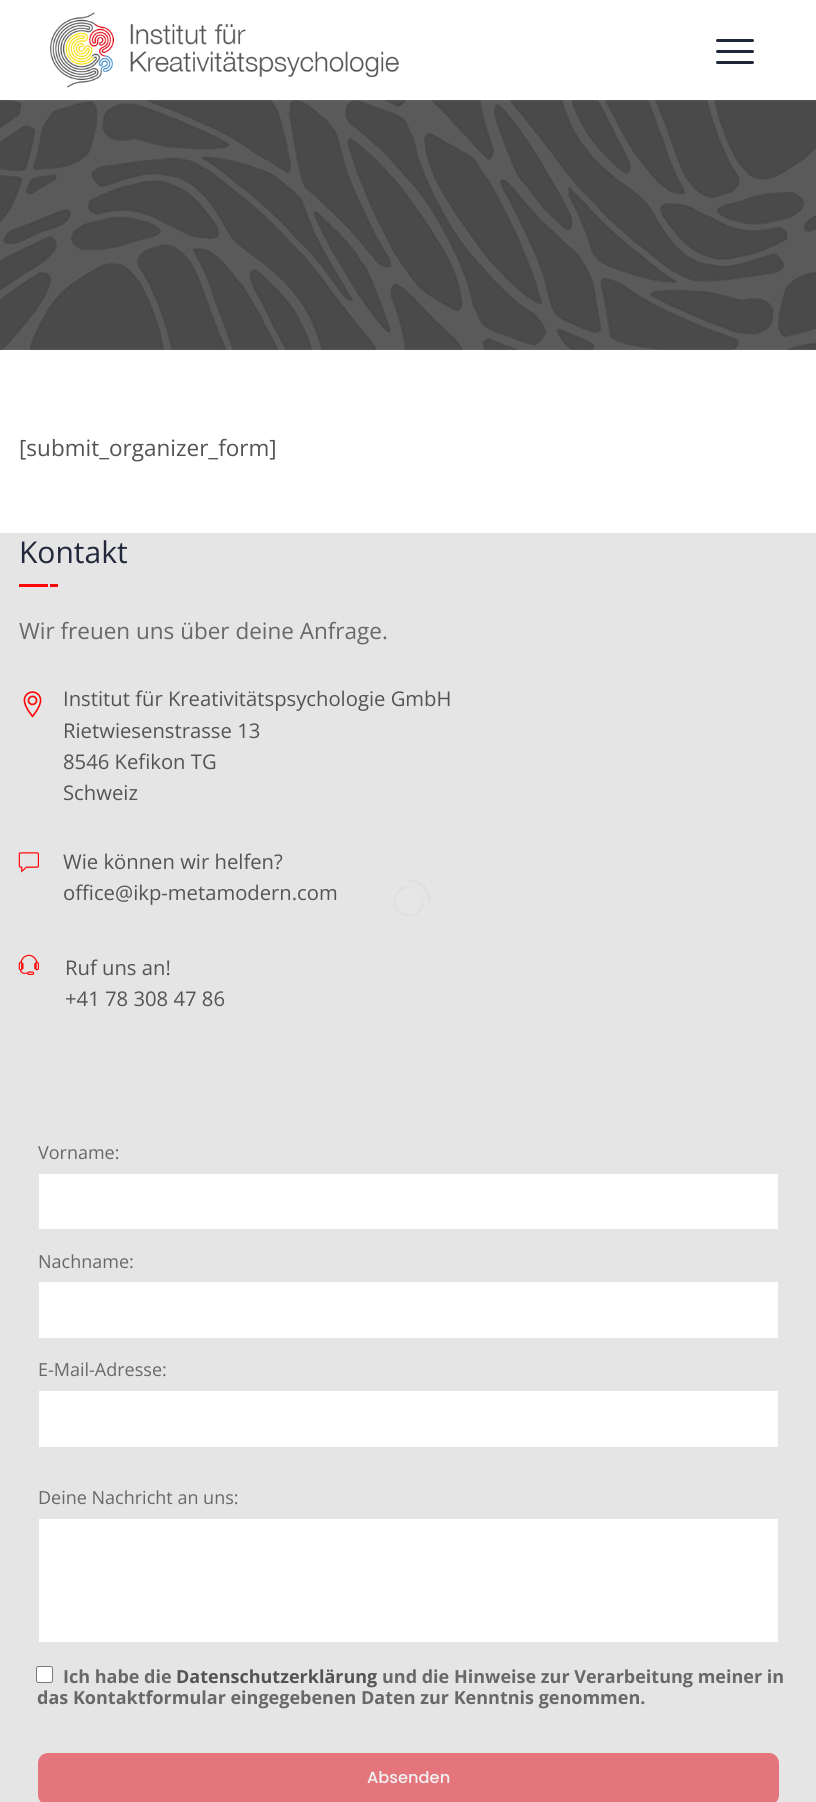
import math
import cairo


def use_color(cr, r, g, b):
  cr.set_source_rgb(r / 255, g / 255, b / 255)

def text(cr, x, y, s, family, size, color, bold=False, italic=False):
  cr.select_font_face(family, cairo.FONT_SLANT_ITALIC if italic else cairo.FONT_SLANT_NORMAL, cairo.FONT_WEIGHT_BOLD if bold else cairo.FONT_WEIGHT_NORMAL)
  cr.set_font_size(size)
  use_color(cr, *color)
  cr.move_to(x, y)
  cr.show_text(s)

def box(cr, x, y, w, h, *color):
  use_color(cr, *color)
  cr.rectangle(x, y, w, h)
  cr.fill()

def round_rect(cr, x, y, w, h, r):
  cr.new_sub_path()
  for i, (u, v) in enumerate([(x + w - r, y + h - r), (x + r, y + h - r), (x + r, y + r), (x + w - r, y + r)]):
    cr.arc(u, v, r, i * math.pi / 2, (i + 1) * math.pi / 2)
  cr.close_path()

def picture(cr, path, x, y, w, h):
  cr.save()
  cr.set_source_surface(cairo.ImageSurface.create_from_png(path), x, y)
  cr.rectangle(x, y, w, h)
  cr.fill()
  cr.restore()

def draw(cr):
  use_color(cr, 255, 255, 255)
  cr.paint()
  picture(cr, "img_01.png", 50, 12, 349, 76)
  use_color(cr, 29, 39, 55)
  round_rect(cr, 716, 50, 38, 3, 1.5)
  cr.fill()
  round_rect(cr, 716, 39, 38, 3, 1.5)
  cr.fill()
  round_rect(cr, 716, 61, 38, 3, 1.5)
  cr.fill()
  picture(cr, "img_02.png", 0, 100, 816, 250)
  box(cr, 0, 533, 816, 1269, 229, 229, 229)
  box(cr, 19, 584, 29, 3, 255, 5, 5)
  box(cr, 50, 584, 8, 3, 255, 5, 5)
  picture(cr, "img_03.png", 23, 691, 19, 27)
  picture(cr, "img_04.png", 18, 852, 21, 21)
  picture(cr, "img_05.png", 18, 954, 21, 21)
  box(cr, 39, 1174, 739, 55, 255, 255, 255)
  box(cr, 39, 1282, 739, 56, 255, 255, 255)
  box(cr, 39, 1391, 739, 56, 255, 255, 255)
  box(cr, 39, 1519, 739, 123, 255, 255, 255)
  round_rect(cr, 36.5, 1666.5, 16, 16, 2)
  cr.fill_preserve()
  use_color(cr, 121, 121, 121)
  cr.set_line_width(1)
  cr.stroke()
  use_color(cr, 228, 117, 125)
  round_rect(cr, 39.5, 1754.5, 738, 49, 8.5)
  cr.fill_preserve()
  cr.set_line_width(3)
  cr.stroke()
  picture(cr, "img_06.png", 394, 879, 37, 37)
  text(cr, 19, 456, "[submit_organizer_form]", "Open Sans", 22.5, (84, 84, 84))
  text(cr, 19, 563, "Kontakt", "Open Sans", 30, (34, 40, 57))
  text(cr, 19, 639, "Wir freuen uns über deine Anfrage.", "Open Sans", 22.5, (104, 104, 104))
  text(cr, 63, 706, "Institut für Kreativitätspsychologie GmbH", "Open Sans", 20.25, (84, 84, 84))
  text(cr, 63, 738, "Rietwiesenstrasse 13", "Open Sans", 20.25, (84, 84, 84))
  text(cr, 63, 769, "8546 Kefikon TG", "Open Sans", 20.25, (84, 84, 84))
  text(cr, 63, 800, "Schweiz", "Open Sans", 20.25, (84, 84, 84))
  text(cr, 63, 869, "Wie können wir helfen?", "Open Sans", 20.25, (84, 84, 84))
  text(cr, 63, 900, "office@ikp-metamodern.com", "Open Sans", 20.25, (84, 84, 84))
  text(cr, 65, 975, "Ruf uns an!", "Open Sans", 20.25, (84, 84, 84))
  text(cr, 65, 1006, "+41 78 308 47 86", "Open Sans", 20.25, (84, 84, 84))
  text(cr, 38, 1159, "Vorname:", "Open Sans", 18, (104, 104, 104))
  text(cr, 38, 1268, "Nachname:", "Open Sans", 18, (104, 104, 104))
  text(cr, 38, 1376, "E-Mail-Adresse:", "Open Sans", 18, (104, 104, 104))
  text(cr, 38, 1504, "Deine Nachricht an uns:", "Open Sans", 18, (104, 104, 104))
  text(cr, 63, 1683, "Ich habe die", "Open Sans", 18, (104, 104, 104), bold=True)
  text(cr, 176, 1683, "Datenschutzerklärung", "Open Sans", 18, (84, 84, 84), bold=True)
  text(cr, 382, 1683, "und die Hinweise zur Verarbeitung meiner in", "Open Sans", 18, (104, 104, 104), bold=True)
  text(cr, 37, 1704, "das Kontaktformular eingegebenen Daten zur Kenntnis genommen.", "Open Sans", 18, (104, 104, 104), bold=True)
  text(cr, 367, 1783, "Absenden", "Poppins Medium", 16.25, (242, 242, 242))


surface = cairo.ImageSurface(cairo.FORMAT_RGB24, 816, 1802)
cr = cairo.Context(surface)
options = cairo.FontOptions()
options.set_hint_metrics(cairo.HINT_METRICS_OFF)
options.set_hint_style(cairo.HINT_STYLE_NONE)
cr.set_font_options(options)
cr.set_miter_limit(4)
draw(cr)
surface.write_to_png("out.png")
